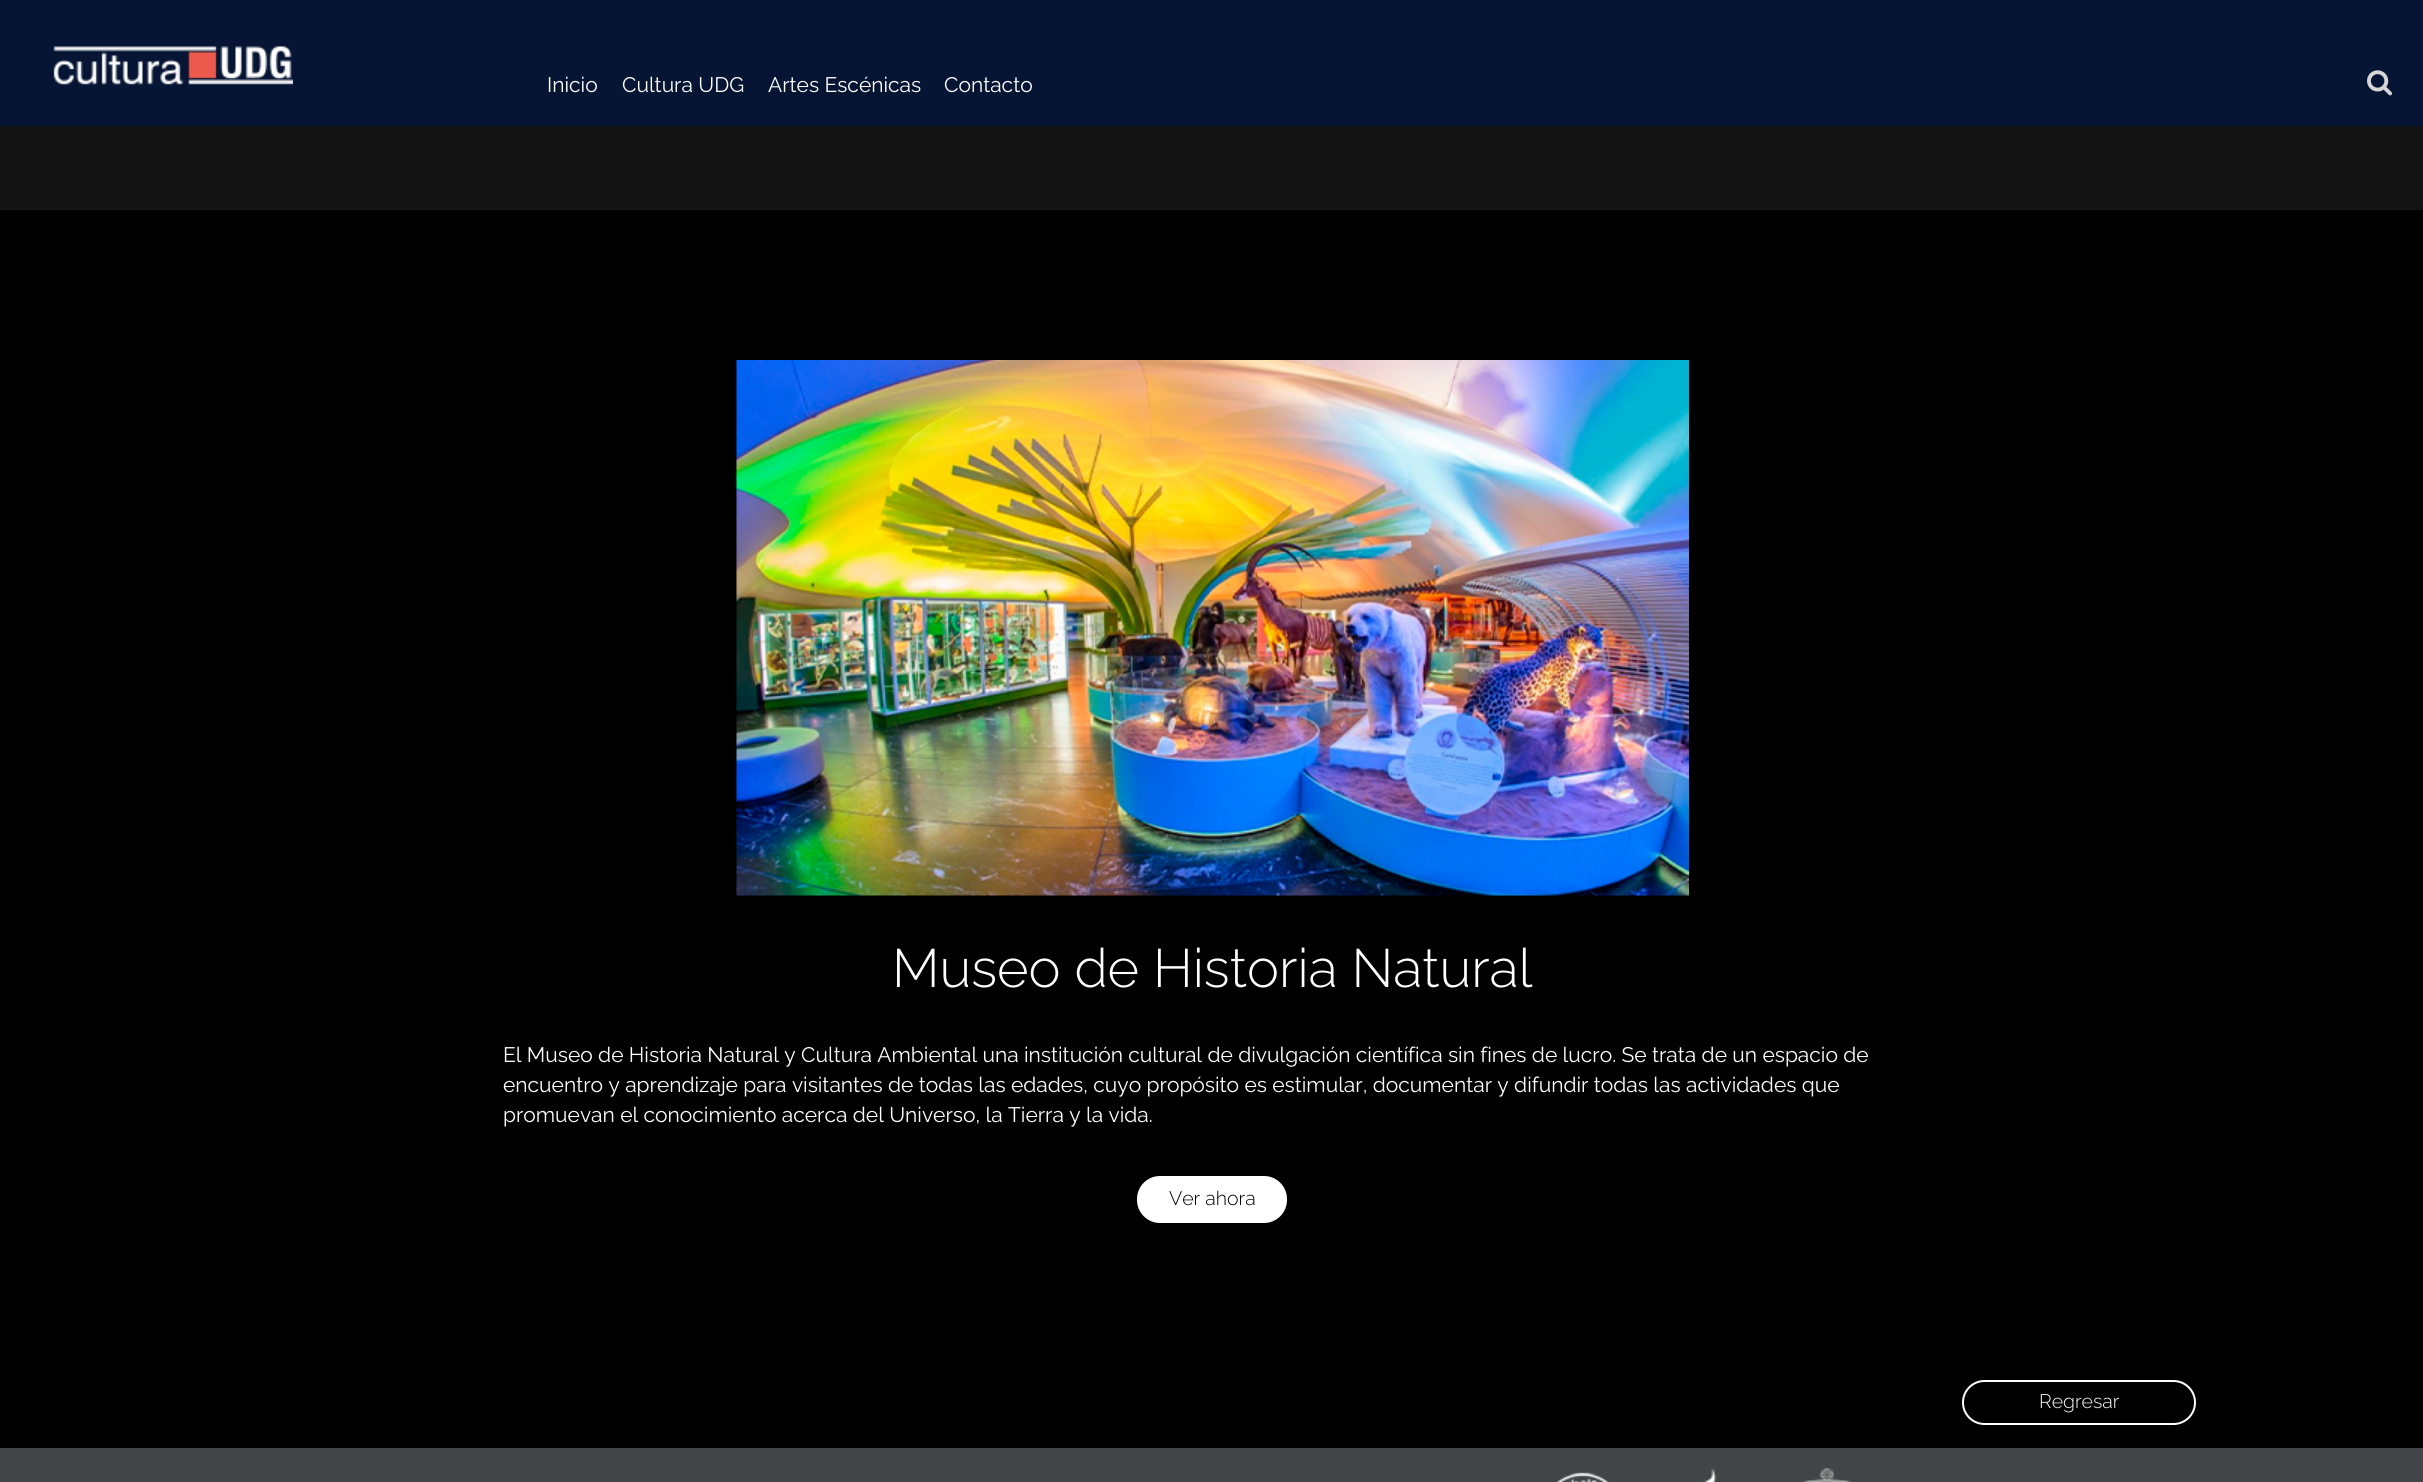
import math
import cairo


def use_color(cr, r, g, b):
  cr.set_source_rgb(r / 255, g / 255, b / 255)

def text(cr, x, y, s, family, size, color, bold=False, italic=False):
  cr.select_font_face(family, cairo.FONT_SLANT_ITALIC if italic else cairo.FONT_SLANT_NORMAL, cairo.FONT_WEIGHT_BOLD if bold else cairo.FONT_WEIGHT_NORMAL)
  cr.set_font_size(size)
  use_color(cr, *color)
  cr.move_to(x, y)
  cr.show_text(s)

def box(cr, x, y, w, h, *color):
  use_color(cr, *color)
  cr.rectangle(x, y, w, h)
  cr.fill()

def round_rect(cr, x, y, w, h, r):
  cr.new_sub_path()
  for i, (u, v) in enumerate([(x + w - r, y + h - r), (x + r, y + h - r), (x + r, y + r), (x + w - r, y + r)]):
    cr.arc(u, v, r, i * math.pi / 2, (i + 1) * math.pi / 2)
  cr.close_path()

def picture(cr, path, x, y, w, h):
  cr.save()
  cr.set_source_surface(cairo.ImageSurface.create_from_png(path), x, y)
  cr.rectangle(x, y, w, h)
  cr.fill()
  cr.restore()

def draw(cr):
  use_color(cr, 20, 20, 20)
  cr.paint()
  box(cr, 0, 0, 2423, 126, 6, 21, 51)
  picture(cr, "img_01.png", 53, 46, 240, 39)
  picture(cr, "img_02.png", 2367, 70, 26, 26)
  box(cr, 0, 210, 2423, 1238, 0, 0, 0)
  picture(cr, "img_03.png", 736, 360, 953, 536)
  use_color(cr, 255, 255, 255)
  round_rect(cr, 1138, 1177, 148, 45, 22)
  cr.fill_preserve()
  cr.stroke()
  round_rect(cr, 1963, 1381, 232, 43, 21.5)
  cr.stroke()
  box(cr, 0, 1448, 2423, 34, 67, 68, 71)
  picture(cr, "img_04.png", 1556, 1472, 54, 10)
  picture(cr, "img_05.png", 1703, 1468, 14, 14)
  picture(cr, "img_06.png", 1800, 1468, 54, 14)
  text(cr, 547, 92, "Inicio", "Raleway", 21, (255, 255, 255))
  text(cr, 622, 92, "Cultura UDG", "Raleway", 21, (255, 255, 255))
  text(cr, 768, 92, "Artes Escénicas", "Raleway", 21, (255, 255, 255))
  text(cr, 944, 92, "Contacto", "Raleway", 21, (255, 255, 255))
  text(cr, 892, 987, "Museo de Historia Natural", "Raleway Light", 54, (255, 255, 255))
  text(cr, 503, 1062, "El Museo de Historia Natural y Cultura Ambiental una institución cultural de divulgación científica sin fines de lucro. Se trata de un espacio de", "Raleway", 21, (255, 255, 255))
  text(cr, 503, 1092, "encuentro y aprendizaje para visitantes de todas las edades, cuyo propósito es estimular, documentar y difundir todas las actividades que", "Raleway", 21, (255, 255, 255))
  text(cr, 503, 1122, "promuevan el conocimiento acerca del Universo, la Tierra y la vida.", "Raleway", 21, (255, 255, 255))
  text(cr, 1169, 1205, "Ver ahora", "Raleway Light", 19.5, (0, 0, 0))
  text(cr, 2039, 1408, "Regresar", "Raleway Light", 19.5, (255, 255, 255))


surface = cairo.ImageSurface(cairo.FORMAT_RGB24, 2423, 1482)
cr = cairo.Context(surface)
options = cairo.FontOptions()
options.set_hint_metrics(cairo.HINT_METRICS_OFF)
options.set_hint_style(cairo.HINT_STYLE_NONE)
cr.set_font_options(options)
cr.set_miter_limit(4)
draw(cr)
surface.write_to_png("out.png")
